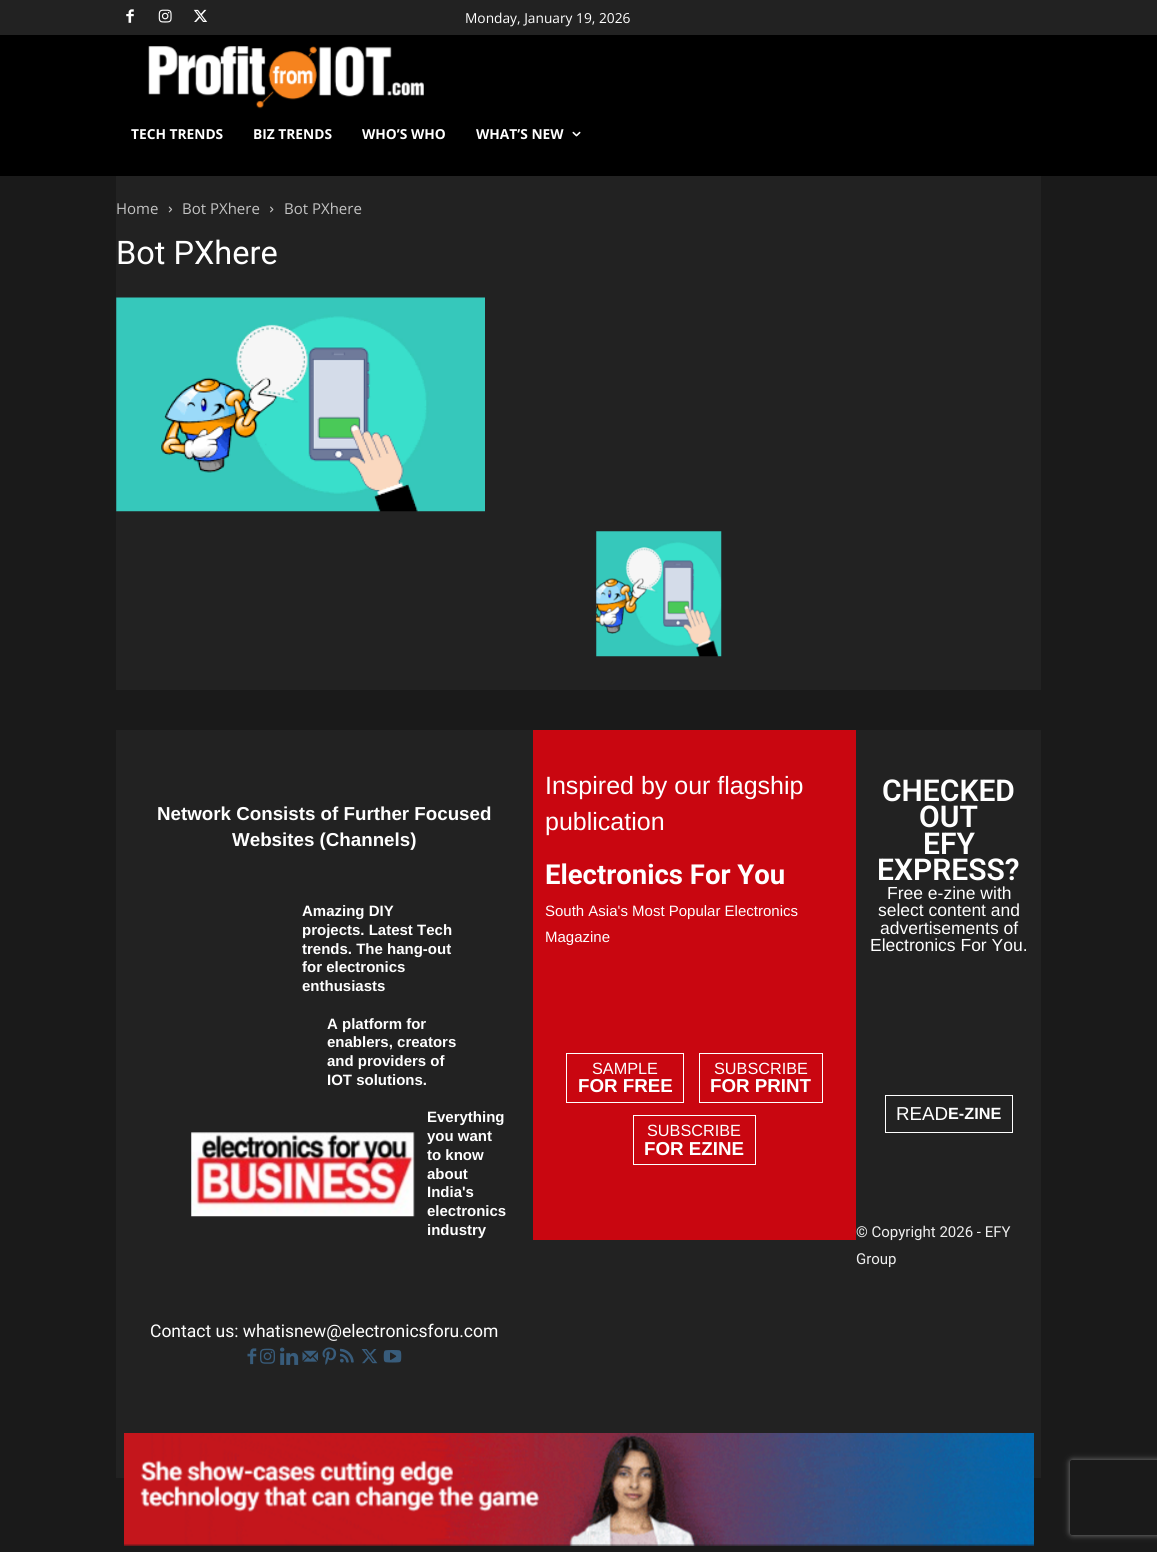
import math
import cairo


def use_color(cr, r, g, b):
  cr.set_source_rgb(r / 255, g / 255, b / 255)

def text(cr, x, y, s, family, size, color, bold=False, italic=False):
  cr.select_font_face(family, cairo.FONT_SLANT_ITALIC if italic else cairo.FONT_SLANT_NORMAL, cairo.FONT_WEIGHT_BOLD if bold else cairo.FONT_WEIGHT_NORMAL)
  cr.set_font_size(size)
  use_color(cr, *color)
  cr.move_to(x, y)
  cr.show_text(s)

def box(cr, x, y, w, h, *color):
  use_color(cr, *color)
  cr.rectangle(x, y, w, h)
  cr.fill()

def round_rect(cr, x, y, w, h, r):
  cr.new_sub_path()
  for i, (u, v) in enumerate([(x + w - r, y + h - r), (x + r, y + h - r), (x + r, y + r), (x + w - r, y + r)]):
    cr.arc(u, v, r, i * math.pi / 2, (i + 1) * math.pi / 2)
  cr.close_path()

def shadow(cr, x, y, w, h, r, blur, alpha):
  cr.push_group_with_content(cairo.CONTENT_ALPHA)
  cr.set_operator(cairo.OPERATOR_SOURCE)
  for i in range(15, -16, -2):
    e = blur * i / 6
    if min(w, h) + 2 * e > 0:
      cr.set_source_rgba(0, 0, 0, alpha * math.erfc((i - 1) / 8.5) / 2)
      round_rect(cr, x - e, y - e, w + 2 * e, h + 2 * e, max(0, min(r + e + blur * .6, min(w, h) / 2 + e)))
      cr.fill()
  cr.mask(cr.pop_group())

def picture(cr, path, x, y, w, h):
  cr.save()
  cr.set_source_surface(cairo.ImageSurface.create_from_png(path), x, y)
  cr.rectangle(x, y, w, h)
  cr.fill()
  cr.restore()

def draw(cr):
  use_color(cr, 26, 26, 26)
  cr.paint()
  box(cr, 0, 0, 1157, 35, 34, 34, 34)
  picture(cr, "img_01.png", 126, 9, 8, 14)
  picture(cr, "img_02.png", 158, 9, 14, 14)
  picture(cr, "img_03.png", 193, 9, 15, 13)
  box(cr, 0, 35, 1157, 141, 0, 0, 0)
  picture(cr, "img_04.png", 148, 46, 276, 63)
  picture(cr, "img_05.png", 572, 131, 9, 6)
  box(cr, 116, 176, 925, 514, 34, 34, 34)
  picture(cr, "img_06.png", 168, 206, 5, 7)
  picture(cr, "img_07.png", 270, 206, 4, 7)
  picture(cr, "img_08.png", 116, 297, 369, 215)
  picture(cr, "img_09.png", 596, 531, 126, 126)
  box(cr, 116, 730, 925, 748, 34, 34, 34)
  picture(cr, "img_10.png", 191, 1132, 224, 85)
  picture(cr, "img_11.png", 247, 1348, 10, 17)
  picture(cr, "img_12.png", 260, 1348, 15, 16)
  picture(cr, "img_13.png", 280, 1347, 19, 18)
  picture(cr, "img_14.png", 302, 1350, 16, 12)
  picture(cr, "img_15.png", 322, 1347, 15, 18)
  picture(cr, "img_16.png", 340, 1348, 14, 15)
  picture(cr, "img_17.png", 361, 1349, 17, 15)
  picture(cr, "img_18.png", 383, 1350, 19, 13)
  box(cr, 533, 730, 323, 510, 201, 6, 16)
  cr.rectangle(566.5, 1053.5, 117, 49)
  use_color(cr, 255, 255, 255)
  cr.set_line_width(1)
  cr.stroke()
  cr.rectangle(699.5, 1053.5, 123, 49)
  cr.stroke()
  cr.rectangle(633.5, 1115.5, 122, 49)
  cr.stroke()
  cr.rectangle(885.5, 1095.5, 127, 37)
  cr.stroke()
  picture(cr, "img_19.png", 124, 1433, 910, 113)
  cr.save()
  cr.set_fill_rule(cairo.FILL_RULE_EVEN_ODD)
  cr.new_path()
  cr.move_to(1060, 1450)
  cr.line_to(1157, 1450)
  cr.line_to(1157, 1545)
  cr.line_to(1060, 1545)
  cr.close_path()
  cr.move_to(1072.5, 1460)
  cr.line_to(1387.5, 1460)
  cr.curve_to(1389, 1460, 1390, 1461, 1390, 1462.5)
  cr.line_to(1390, 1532.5)
  cr.curve_to(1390, 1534, 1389, 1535, 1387.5, 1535)
  cr.line_to(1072.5, 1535)
  cr.curve_to(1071, 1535, 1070, 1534, 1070, 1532.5)
  cr.line_to(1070, 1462.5)
  cr.curve_to(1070, 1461, 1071, 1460, 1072.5, 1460)
  cr.close_path()
  cr.clip()
  use_color(cr, 128, 128, 128)
  shadow(cr, 1070, 1460, 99, 75, 2.5, 3, 1)
  cr.restore()
  text(cr, 465, 23, "Monday, January 19, 2026", "Open Sans", 13.75, (255, 255, 255))
  text(cr, 131, 139, "TECH TRENDS", "Open Sans", 13.75, (255, 255, 255), bold=True)
  text(cr, 253, 139, "BIZ TRENDS", "Open Sans", 13.75, (255, 255, 255), bold=True)
  text(cr, 362, 139, "WHO’S WHO", "Open Sans", 13.75, (255, 255, 255), bold=True)
  text(cr, 476, 139, "WHAT’S NEW", "Open Sans", 13.75, (255, 255, 255), bold=True)
  text(cr, 116, 214, "Home", "Open Sans", 15, (195, 195, 195))
  text(cr, 182, 214, "Bot PXhere", "Open Sans", 15, (195, 195, 195))
  text(cr, 284, 214, "Bot PXhere", "Open Sans", 15, (195, 195, 195))
  text(cr, 116, 264, "Bot PXhere", "Roboto", 32.5, (255, 255, 255))
  text(cr, 157, 820, "Network Consists of Further Focused", "Liberation Sans", 18.75, (255, 255, 255), bold=True)
  text(cr, 232, 846, "Websites (Channels)", "Liberation Sans", 18.75, (255, 255, 255), bold=True)
  text(cr, 302, 916, "Amazing DIY", "Liberation Sans", 15, (255, 255, 255), bold=True)
  text(cr, 302, 935, "projects. Latest Tech", "Liberation Sans", 15, (255, 255, 255), bold=True)
  text(cr, 302, 954, "trends. The hang-out", "Liberation Sans", 15, (255, 255, 255), bold=True)
  text(cr, 302, 972, "for electronics", "Liberation Sans", 15, (255, 255, 255), bold=True)
  text(cr, 302, 991, "enthusiasts", "Liberation Sans", 15, (255, 255, 255), bold=True)
  text(cr, 327, 1029, "A platform for", "Liberation Sans", 15, (255, 255, 255), bold=True)
  text(cr, 327, 1047, "enablers, creators", "Liberation Sans", 15, (255, 255, 255), bold=True)
  text(cr, 327, 1066, "and providers of", "Liberation Sans", 15, (255, 255, 255), bold=True)
  text(cr, 327, 1085, "IOT solutions.", "Liberation Sans", 15, (255, 255, 255), bold=True)
  text(cr, 427, 1122, "Everything", "Liberation Sans", 15, (255, 255, 255), bold=True)
  text(cr, 427, 1141, "you want", "Liberation Sans", 15, (255, 255, 255), bold=True)
  text(cr, 427, 1160, "to know", "Liberation Sans", 15, (255, 255, 255), bold=True)
  text(cr, 427, 1179, "about", "Liberation Sans", 15, (255, 255, 255), bold=True)
  text(cr, 427, 1197, "India's", "Liberation Sans", 15, (255, 255, 255), bold=True)
  text(cr, 427, 1216, "electronics", "Liberation Sans", 15, (255, 255, 255), bold=True)
  text(cr, 427, 1235, "industry", "Liberation Sans", 15, (255, 255, 255), bold=True)
  text(cr, 150, 1337, "Contact us: whatisnew@electronicsforu.com", "Roboto", 17.5, (255, 255, 255))
  text(cr, 545, 794, "Inspired by our flagship", "Liberation Sans", 25, (255, 255, 255))
  text(cr, 545, 830, "publication", "Liberation Sans", 25, (255, 255, 255))
  text(cr, 545, 884, "Electronics For You", "Roboto", 27.5, (255, 255, 255), bold=True)
  text(cr, 545, 916, "South Asia's Most Popular Electronics", "Liberation Sans", 15, (255, 255, 255))
  text(cr, 545, 942, "Magazine", "Liberation Sans", 15, (255, 255, 255))
  text(cr, 592, 1074, "SAMPLE", "Liberation Sans", 16.25, (255, 255, 255))
  text(cr, 578, 1092, "FOR FREE", "Liberation Sans", 18.75, (255, 255, 255), bold=True)
  text(cr, 714, 1074, "SUBSCRIBE", "Liberation Sans", 16.25, (255, 255, 255))
  text(cr, 710, 1092, "FOR PRINT", "Liberation Sans", 18.75, (255, 255, 255), bold=True)
  text(cr, 647, 1136, "SUBSCRIBE", "Liberation Sans", 16.25, (255, 255, 255))
  text(cr, 644, 1155, "FOR EZINE", "Liberation Sans", 18.75, (255, 255, 255), bold=True)
  text(cr, 882, 801, "CHECKED", "Roboto SemiBold", 30, (255, 255, 255))
  text(cr, 919, 827, "OUT", "Roboto SemiBold", 30, (255, 255, 255))
  text(cr, 923, 854, "EFY", "Roboto SemiBold", 30, (255, 255, 255))
  text(cr, 877, 880, "EXPRESS?", "Roboto SemiBold", 30, (255, 255, 255))
  text(cr, 887, 899, "Free e-zine with", "Liberation Sans", 17.5, (255, 255, 255))
  text(cr, 878, 916, "select content and", "Liberation Sans", 17.5, (255, 255, 255))
  text(cr, 880, 934, "advertisements of", "Liberation Sans", 17.5, (255, 255, 255))
  text(cr, 870, 951, "Electronics For You.", "Liberation Sans", 17.5, (255, 255, 255))
  text(cr, 896, 1120, "READ", "Liberation Sans", 18.75, (255, 255, 255))
  text(cr, 948, 1119, "E-ZINE", "Liberation Sans", 16.25, (255, 255, 255), bold=True)
  text(cr, 856, 1237, "© Copyright 2026 - EFY", "Roboto", 15, (238, 238, 238))
  text(cr, 856, 1264, "Group", "Roboto", 15, (238, 238, 238))


surface = cairo.ImageSurface(cairo.FORMAT_RGB24, 1157, 1552)
cr = cairo.Context(surface)
options = cairo.FontOptions()
options.set_hint_metrics(cairo.HINT_METRICS_OFF)
options.set_hint_style(cairo.HINT_STYLE_NONE)
cr.set_font_options(options)
cr.set_miter_limit(4)
draw(cr)
surface.write_to_png("out.png")
